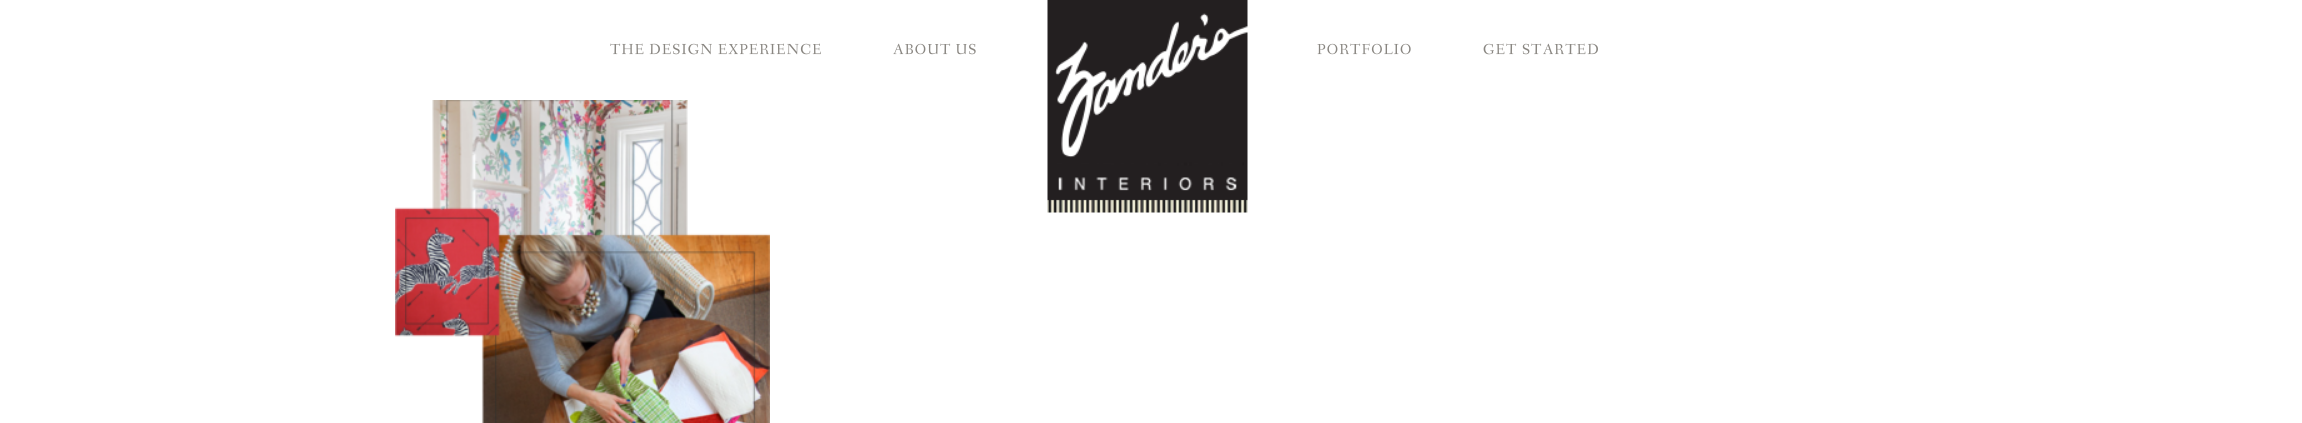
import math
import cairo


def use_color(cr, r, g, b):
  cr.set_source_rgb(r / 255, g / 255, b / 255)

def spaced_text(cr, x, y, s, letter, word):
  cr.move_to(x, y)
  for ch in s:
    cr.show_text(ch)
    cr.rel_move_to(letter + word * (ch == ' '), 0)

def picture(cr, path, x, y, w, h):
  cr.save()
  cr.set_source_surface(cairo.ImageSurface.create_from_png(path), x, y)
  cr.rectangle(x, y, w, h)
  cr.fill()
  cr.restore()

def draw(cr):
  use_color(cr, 255, 255, 255)
  cr.paint()
  picture(cr, "img_01.png", 1047, 0, 201, 213)
  picture(cr, "img_02.png", 395, 100, 375, 323)
  cr.select_font_face("Fanwood Text")
  cr.set_font_size(15)
  use_color(cr, 137, 134, 129)
  spaced_text(cr, 610, 54, "THE DESIGN EXPERIENCE", 1.25, 0)
  spaced_text(cr, 893, 54, "ABOUT US", 1.25, 0)
  spaced_text(cr, 1317, 54, "PORTFOLIO", 1.25, 0)
  spaced_text(cr, 1483, 54, "GET STARTED", 1.25, 0)


surface = cairo.ImageSurface(cairo.FORMAT_RGB24, 2302, 423)
cr = cairo.Context(surface)
options = cairo.FontOptions()
options.set_hint_metrics(cairo.HINT_METRICS_OFF)
options.set_hint_style(cairo.HINT_STYLE_NONE)
cr.set_font_options(options)
cr.set_miter_limit(4)
draw(cr)
surface.write_to_png("out.png")
